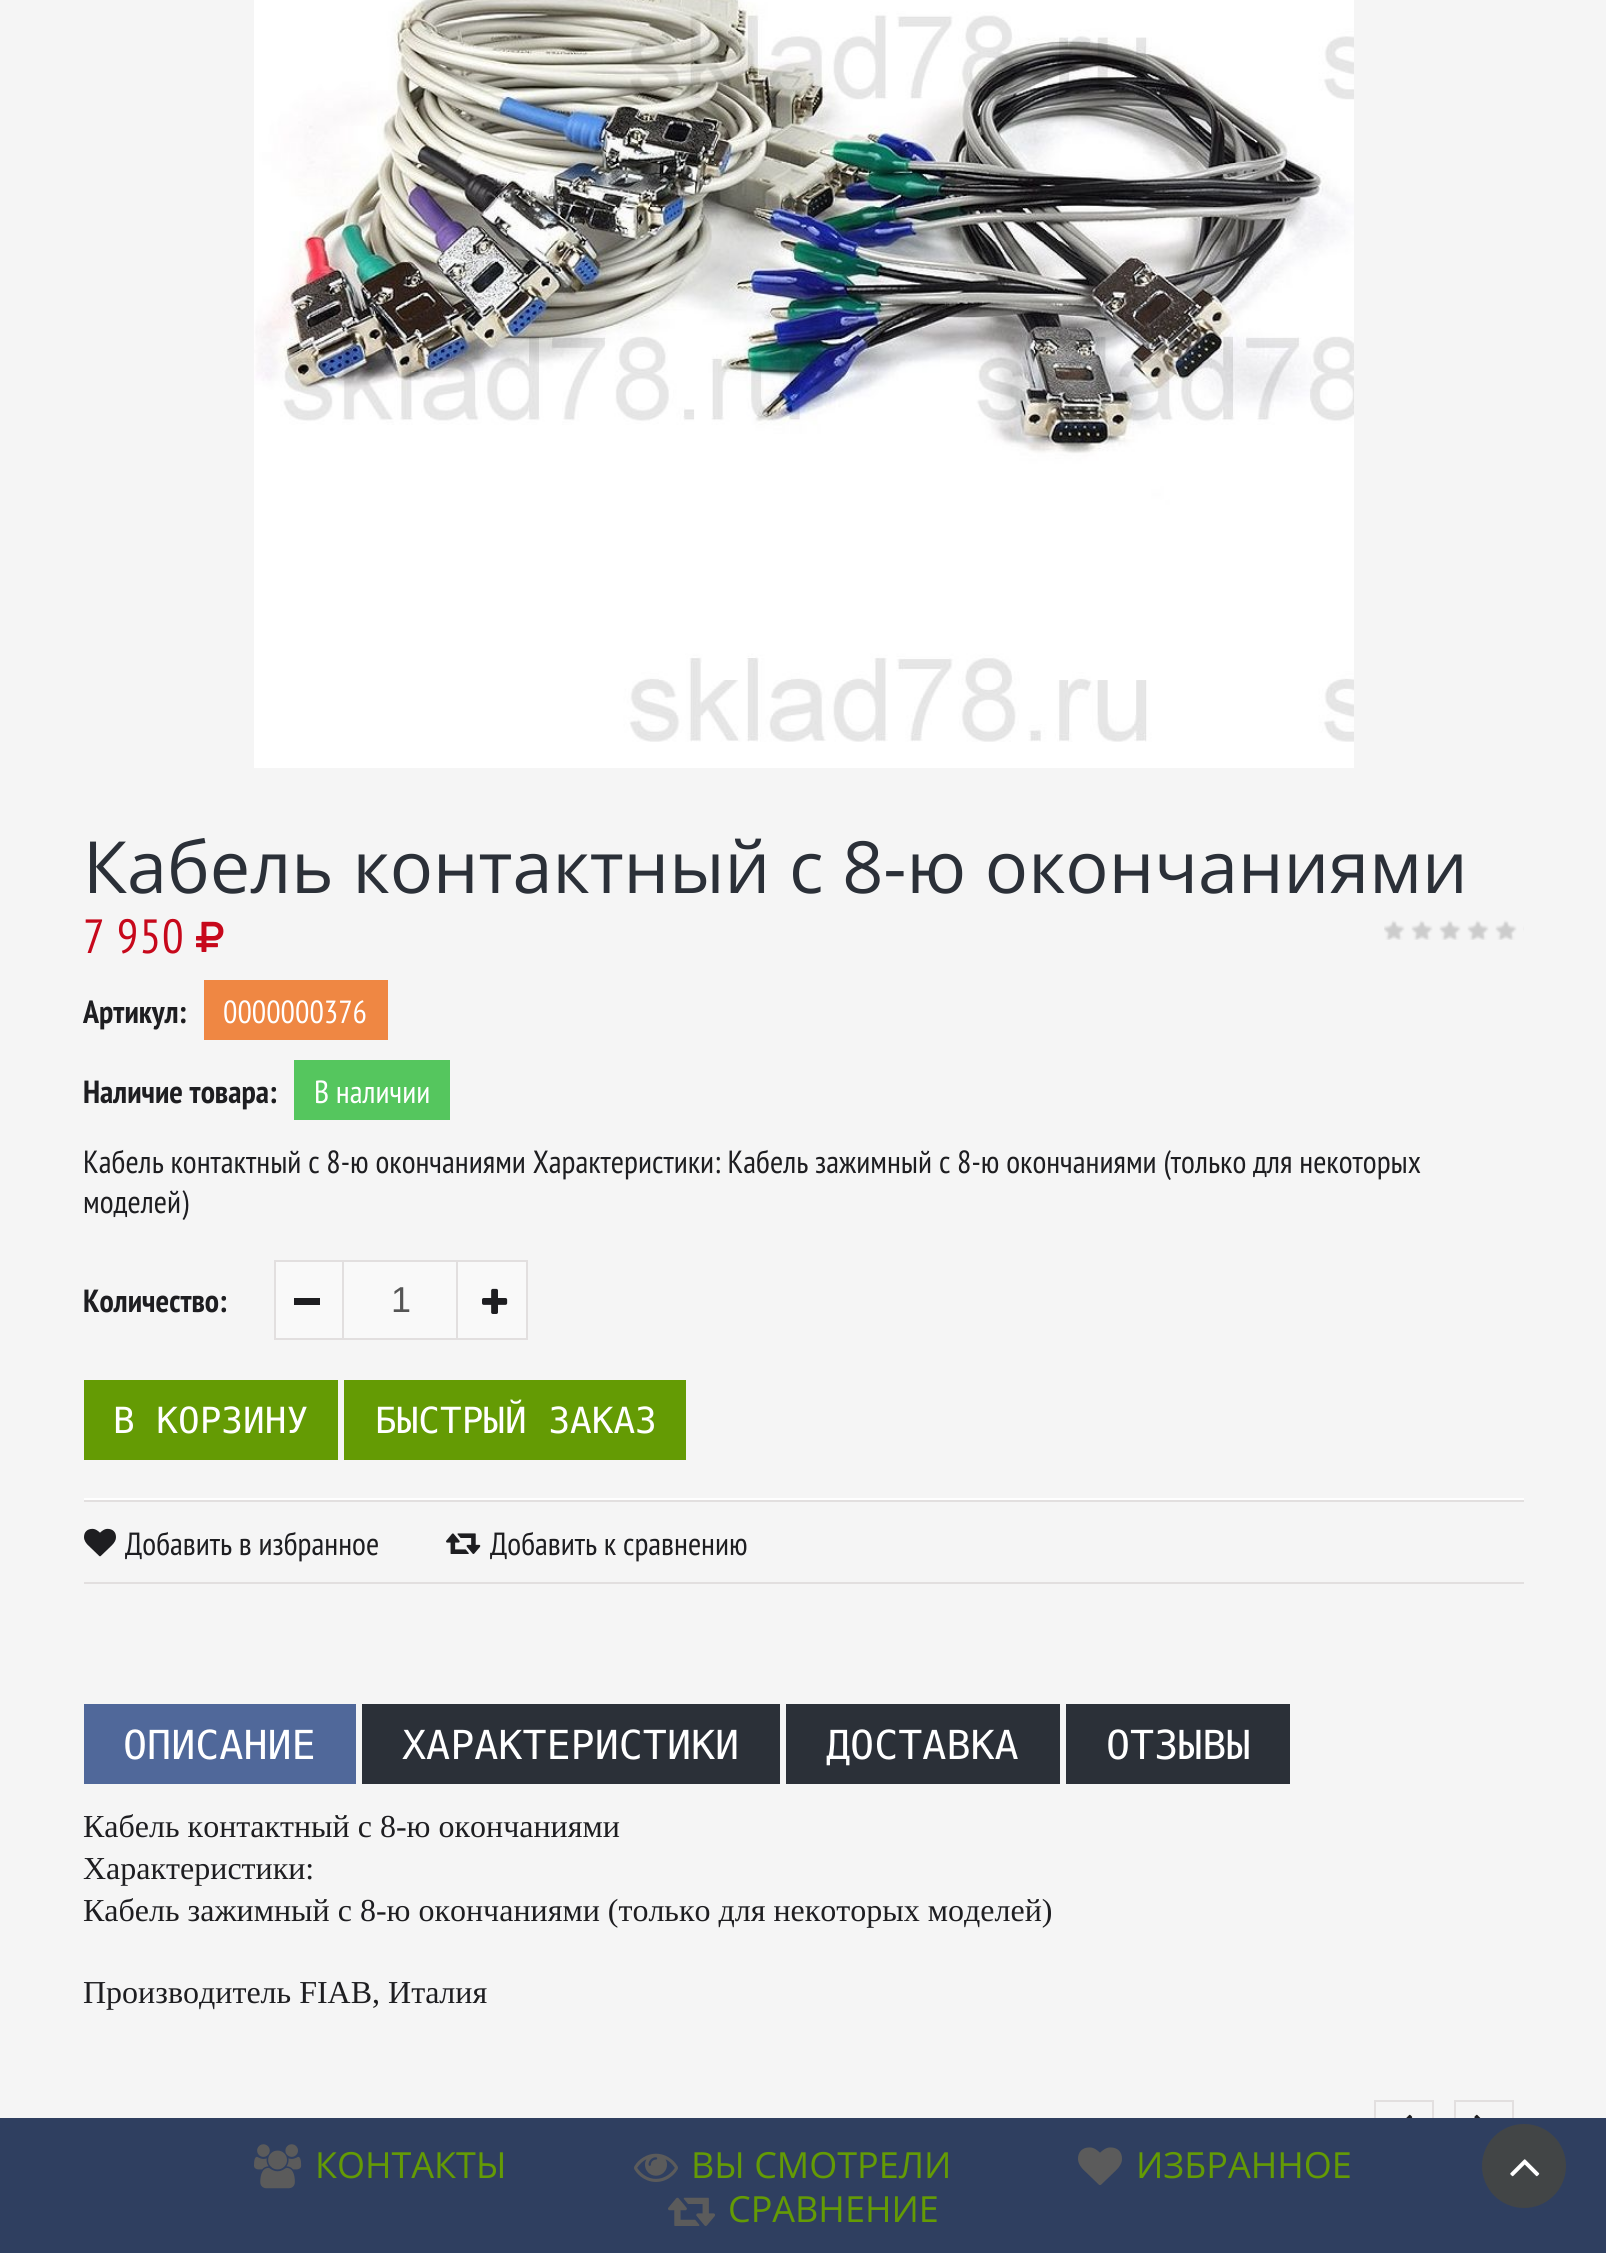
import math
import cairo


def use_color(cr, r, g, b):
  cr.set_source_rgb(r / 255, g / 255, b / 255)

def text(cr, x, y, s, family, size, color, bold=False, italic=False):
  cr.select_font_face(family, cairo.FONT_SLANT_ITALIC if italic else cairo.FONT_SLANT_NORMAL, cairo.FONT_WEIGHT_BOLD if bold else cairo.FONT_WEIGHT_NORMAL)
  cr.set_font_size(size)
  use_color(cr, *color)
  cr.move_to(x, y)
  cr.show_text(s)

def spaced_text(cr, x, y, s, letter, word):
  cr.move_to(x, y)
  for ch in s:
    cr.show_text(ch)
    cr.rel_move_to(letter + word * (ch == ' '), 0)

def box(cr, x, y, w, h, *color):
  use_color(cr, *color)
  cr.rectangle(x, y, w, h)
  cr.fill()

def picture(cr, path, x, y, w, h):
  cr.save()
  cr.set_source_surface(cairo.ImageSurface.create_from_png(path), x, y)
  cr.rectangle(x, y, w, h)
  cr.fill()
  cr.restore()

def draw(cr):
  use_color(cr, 245, 245, 245)
  cr.paint()
  picture(cr, "img_01.png", 254, 0, 1100, 768)
  picture(cr, "img_02.png", 196, 921, 28, 31)
  picture(cr, "img_03.png", 1384, 920, 140, 20)
  box(cr, 204, 980, 184, 60, 239, 135, 67)
  box(cr, 294, 1060, 156, 60, 85, 198, 94)
  use_color(cr, 249, 249, 249)
  cr.rectangle(275, 1261, 252, 78)
  cr.fill_preserve()
  use_color(cr, 226, 223, 223)
  cr.stroke()
  box(cr, 294, 1298, 26, 7, 30, 30, 33)
  box(cr, 456, 1262, 2, 76, 226, 223, 223)
  box(cr, 342, 1262, 2, 76, 226, 223, 223)
  picture(cr, "img_04.png", 482, 1288, 26, 26)
  box(cr, 84, 1380, 254, 80, 100, 155, 4)
  box(cr, 344, 1380, 342, 80, 100, 155, 4)
  box(cr, 84, 1498, 1440, 2, 255, 255, 255)
  box(cr, 84, 1500, 1440, 2, 226, 223, 223)
  box(cr, 84, 1582, 1440, 2, 226, 223, 223)
  picture(cr, "img_05.png", 84, 1528, 32, 29)
  picture(cr, "img_06.png", 446, 1533, 35, 21)
  box(cr, 84, 1704, 272, 80, 80, 104, 154)
  box(cr, 362, 1704, 418, 80, 43, 48, 56)
  box(cr, 786, 1704, 274, 80, 43, 48, 56)
  box(cr, 1066, 1704, 224, 80, 43, 48, 56)
  cr.rectangle(1375, 2101, 58, 58)
  use_color(cr, 226, 223, 223)
  cr.stroke()
  picture(cr, "img_07.png", 1406, 2114, 7, 4)
  cr.rectangle(1455, 2101, 58, 58)
  cr.stroke()
  picture(cr, "img_08.png", 1474, 2114, 7, 4)
  box(cr, 0, 2118, 1606, 135, 47, 63, 96)
  picture(cr, "img_09.png", 254, 2144, 48, 45)
  picture(cr, "img_10.png", 634, 2153, 44, 29)
  picture(cr, "img_11.png", 1078, 2147, 44, 38)
  picture(cr, "img_12.png", 668, 2197, 47, 29)
  use_color(cr, 66, 69, 70)
  cr.arc(1524, 2166, 42, 0, 2 * math.pi)
  cr.fill()
  picture(cr, "img_13.png", 1510, 2159, 30, 18)
  text(cr, 83, 893, "Кабель контактный с 8-ю окончаниями", "Open Sans", 72, (43, 48, 56))
  cr.select_font_face("PT Sans Narrow")
  cr.set_font_size(48)
  use_color(cr, 199, 8, 27)
  spaced_text(cr, 83, 953, "7 950", 1, 0)
  text(cr, 83, 1023, "Артикул:", "PT Sans Narrow", 32, (30, 30, 33), bold=True)
  text(cr, 223, 1023, "0000000376", "PT Sans Narrow", 32, (255, 255, 255))
  text(cr, 83, 1103, "Наличие товара:", "PT Sans Narrow", 32, (30, 30, 33), bold=True)
  text(cr, 314, 1103, "В наличии", "PT Sans Narrow", 32, (255, 255, 255))
  text(cr, 83, 1173, "Кабель контактный с 8-ю окончаниями Характеристики: Кабель зажимный с 8-ю окончаниями (только для некоторых", "PT Sans Narrow", 32, (30, 30, 33))
  text(cr, 83, 1213, "моделей)", "PT Sans Narrow", 32, (30, 30, 33))
  text(cr, 83, 1312, "Количество:", "PT Sans Narrow", 32, (30, 30, 33), bold=True)
  text(cr, 391, 1312, "1", "Liberation Sans", 36, (85, 85, 85))
  text(cr, 113, 1433, "В КОРЗИНУ", "DejaVu Sans Mono", 36, (255, 255, 255))
  text(cr, 375, 1433, "БЫСТРЫЙ ЗАКАЗ", "DejaVu Sans Mono", 36, (255, 255, 255))
  text(cr, 125, 1555, "Добавить в избранное", "PT Sans Narrow", 32, (30, 30, 33))
  text(cr, 490, 1555, "Добавить к сравнению", "PT Sans Narrow", 32, (30, 30, 33))
  text(cr, 123, 1759, "ОПИСАНИЕ", "DejaVu Sans Mono", 40, (255, 255, 255))
  text(cr, 402, 1759, "ХАРАКТЕРИСТИКИ", "DejaVu Sans Mono", 40, (255, 255, 255))
  text(cr, 826, 1759, "ДОСТАВКА", "DejaVu Sans Mono", 40, (255, 255, 255))
  text(cr, 1106, 1759, "ОТЗЫВЫ", "DejaVu Sans Mono", 40, (255, 255, 255))
  text(cr, 83, 1837, "Кабель контактный с 8-ю окончаниями", "Liberation Serif", 32, (30, 30, 33))
  text(cr, 83, 1879, "Характеристики:", "Liberation Serif", 32, (30, 30, 33))
  text(cr, 83, 1921, "Кабель зажимный с 8-ю окончаниями (только для некоторых моделей)", "Liberation Serif", 32, (30, 30, 33))
  text(cr, 83, 2003, "Производитель FIAB, Италия", "Liberation Serif", 32, (30, 30, 33))
  text(cr, 315, 2178, "КОНТАКТЫ", "Open Sans", 36, (100, 155, 4))
  text(cr, 691, 2178, "ВЫ СМОТРЕЛИ", "Open Sans", 36, (100, 155, 4))
  text(cr, 1136, 2178, "ИЗБРАННОЕ", "Open Sans", 36, (100, 155, 4))
  text(cr, 728, 2222, "СРАВНЕНИЕ", "Open Sans", 36, (100, 155, 4))


surface = cairo.ImageSurface(cairo.FORMAT_RGB24, 1606, 2253)
cr = cairo.Context(surface)
options = cairo.FontOptions()
options.set_hint_metrics(cairo.HINT_METRICS_OFF)
options.set_hint_style(cairo.HINT_STYLE_NONE)
cr.set_font_options(options)
cr.set_miter_limit(4)
draw(cr)
surface.write_to_png("out.png")
